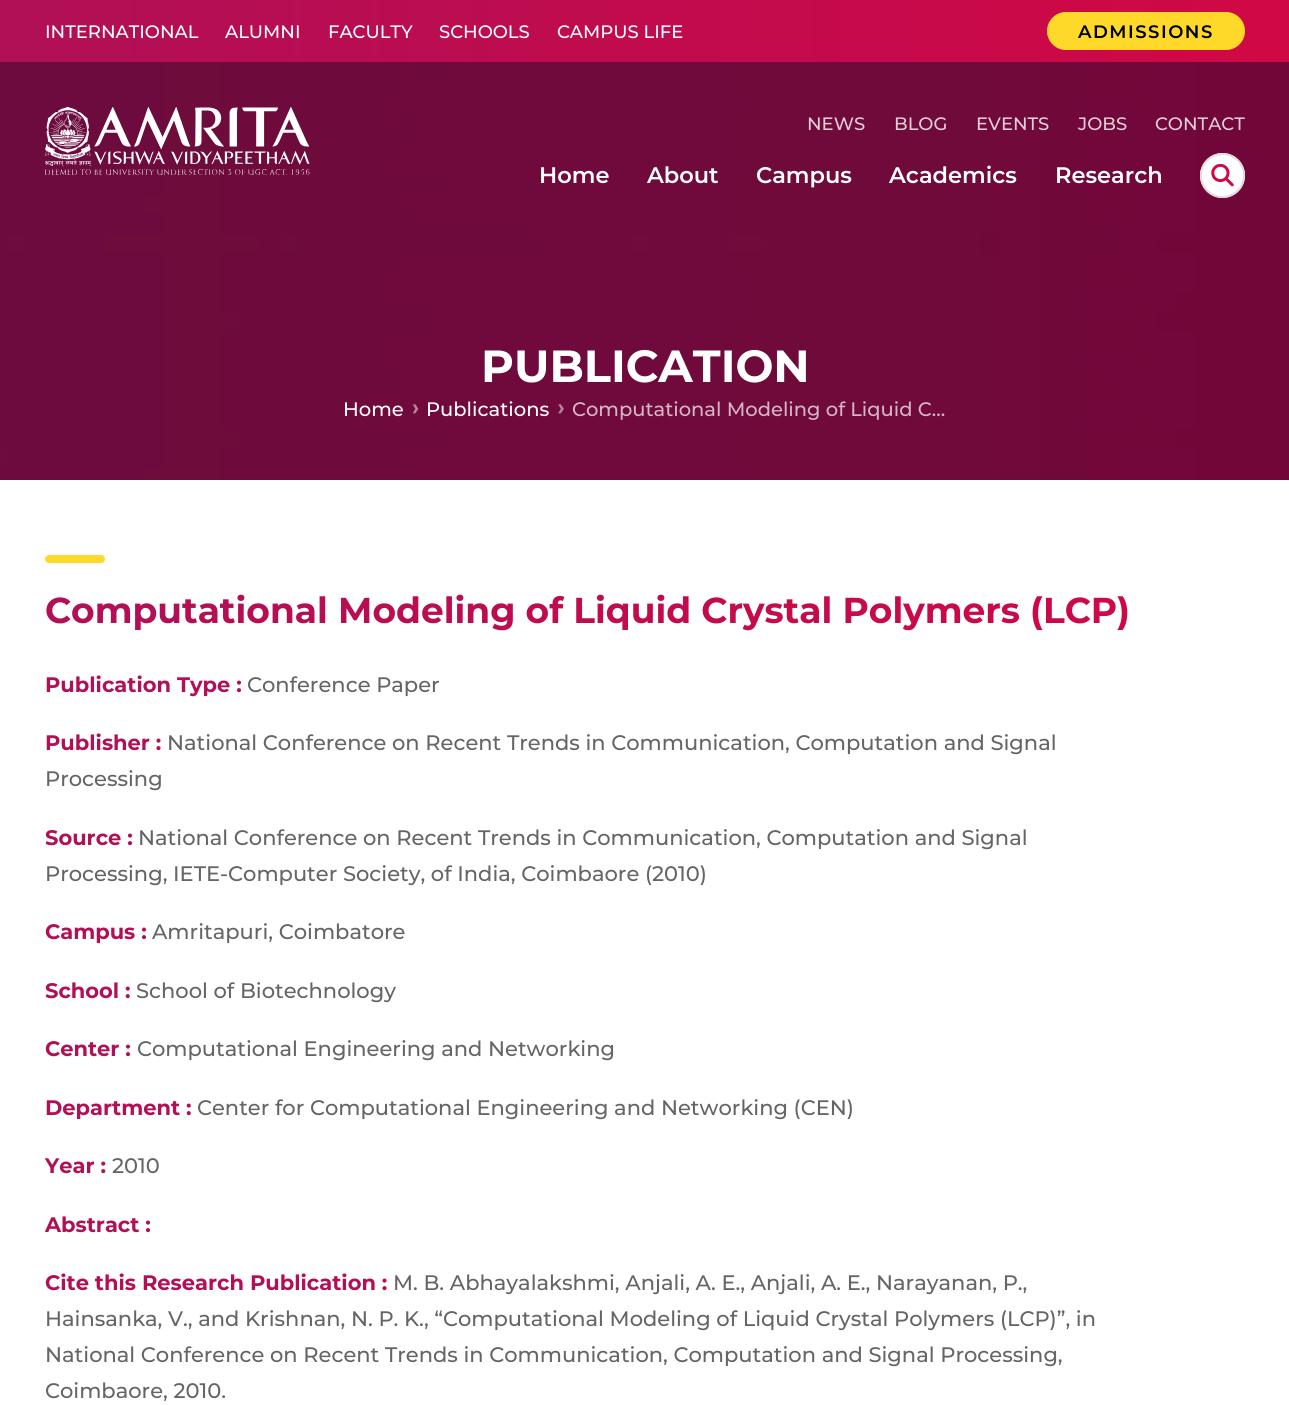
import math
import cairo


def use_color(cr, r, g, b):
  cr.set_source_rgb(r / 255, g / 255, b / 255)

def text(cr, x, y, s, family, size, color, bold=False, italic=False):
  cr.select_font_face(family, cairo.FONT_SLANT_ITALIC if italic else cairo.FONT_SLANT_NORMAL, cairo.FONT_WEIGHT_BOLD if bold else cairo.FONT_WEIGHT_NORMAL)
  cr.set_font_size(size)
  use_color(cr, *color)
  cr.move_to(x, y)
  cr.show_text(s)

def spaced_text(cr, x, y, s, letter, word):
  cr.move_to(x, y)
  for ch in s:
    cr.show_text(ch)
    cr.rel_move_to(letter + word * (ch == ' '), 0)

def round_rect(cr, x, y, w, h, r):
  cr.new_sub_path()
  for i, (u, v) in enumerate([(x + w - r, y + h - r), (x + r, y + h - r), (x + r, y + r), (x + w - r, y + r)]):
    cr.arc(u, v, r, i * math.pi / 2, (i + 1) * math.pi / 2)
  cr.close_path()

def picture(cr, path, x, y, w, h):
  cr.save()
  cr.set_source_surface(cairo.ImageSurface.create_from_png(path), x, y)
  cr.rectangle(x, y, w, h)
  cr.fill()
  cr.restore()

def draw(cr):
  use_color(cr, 255, 255, 255)
  cr.paint()
  gradient = cairo.LinearGradient(0, 31, 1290, 31)
  gradient.add_color_stop_rgba(0.03, 0.694, 0.059, 0.337, 1)
  gradient.add_color_stop_rgba(0.97, 0.816, 0.031, 0.275, 1)
  cr.set_source(gradient)
  cr.rectangle(0, 0, 1289, 62)
  cr.fill()
  use_color(cr, 255, 217, 42)
  round_rect(cr, 1047, 12, 198, 38, 19)
  cr.fill()
  picture(cr, "img_03.png", 0, 62, 1289, 418)
  picture(cr, "img_01.png", 45, 107, 265, 68)
  use_color(cr, 255, 255, 255)
  cr.arc(1222.5, 175.5, 22.5, 0, 2 * math.pi)
  cr.fill()
  picture(cr, "img_02.png", 1211, 164, 23, 23)
  cr.arc(1222.5, 175.5, 21.5, 0, 2 * math.pi)
  use_color(cr, 221, 221, 221)
  cr.stroke()
  picture(cr, "img_04.png", 413, 404, 6, 10)
  picture(cr, "img_05.png", 558, 404, 6, 10)
  use_color(cr, 255, 217, 42)
  round_rect(cr, 45, 555, 60, 8, 4)
  cr.fill()
  text(cr, 45, 38, "INTERNATIONAL", "Montserrat Medium", 18, (255, 255, 255))
  text(cr, 225, 38, "ALUMNI", "Montserrat Medium", 18, (255, 255, 255))
  text(cr, 328, 38, "FACULTY", "Montserrat Medium", 18, (255, 255, 255))
  text(cr, 439, 38, "SCHOOLS", "Montserrat Medium", 18, (255, 255, 255))
  text(cr, 557, 38, "CAMPUS LIFE", "Montserrat Medium", 18, (255, 255, 255))
  cr.select_font_face("Montserrat SemiBold")
  use_color(cr, 0, 0, 0)
  spaced_text(cr, 1078, 38, "ADMISSIONS", 1.5, 0)
  text(cr, 807, 130, "NEWS", "Montserrat Medium", 18, (227, 206, 216))
  text(cr, 894, 130, "BLOG", "Montserrat Medium", 18, (227, 206, 216))
  text(cr, 976, 130, "EVENTS", "Montserrat Medium", 18, (227, 206, 216))
  text(cr, 1078, 130, "JOBS", "Montserrat Medium", 18, (227, 206, 216))
  text(cr, 1155, 130, "CONTACT", "Montserrat Medium", 18, (227, 206, 216))
  text(cr, 539, 183, "Home", "Montserrat SemiBold", 22.5, (255, 255, 255))
  text(cr, 647, 183, "About", "Montserrat SemiBold", 22.5, (255, 255, 255))
  text(cr, 756, 183, "Campus", "Montserrat SemiBold", 22.5, (255, 255, 255))
  text(cr, 889, 183, "Academics", "Montserrat SemiBold", 22.5, (255, 255, 255))
  text(cr, 1055, 183, "Research", "Montserrat SemiBold", 22.5, (255, 255, 255))
  text(cr, 481, 382, "PUBLICATION", "Montserrat", 45, (255, 255, 255), bold=True)
  text(cr, 343, 416, "Home", "Montserrat Medium", 19.5, (255, 255, 255))
  text(cr, 426, 416, "Publications", "Montserrat Medium", 19.5, (255, 255, 255))
  text(cr, 572, 416, "Computational Modeling of Liquid C…", "Montserrat Medium", 19.5, (212, 182, 196))
  cr.select_font_face("Montserrat", cairo.FONT_SLANT_NORMAL, cairo.FONT_WEIGHT_BOLD)
  cr.set_font_size(36)
  gradient = cairo.LinearGradient(45, 596, 1245, 596)
  gradient.add_color_stop_rgba(0.03, 0.694, 0.059, 0.337, 1)
  gradient.add_color_stop_rgba(0.97, 0.816, 0.031, 0.275, 1)
  cr.set_source(gradient)
  cr.move_to(45, 623)
  cr.show_text("Computational Modeling of Liquid Crystal Polymers (LCP)")
  text(cr, 45, 692, "Publication Type :", "Montserrat", 21, (177, 15, 86), bold=True)
  text(cr, 247, 692, "Conference Paper", "Montserrat Medium", 21, (101, 101, 101))
  text(cr, 45, 750, "Publisher :", "Montserrat", 21, (177, 15, 86), bold=True)
  text(cr, 167, 750, "National Conference on Recent Trends in Communication, Computation and Signal", "Montserrat Medium", 21, (101, 101, 101))
  text(cr, 45, 786, "Processing", "Montserrat Medium", 21, (101, 101, 101))
  text(cr, 45, 845, "Source :", "Montserrat", 21, (177, 15, 86), bold=True)
  text(cr, 138, 845, "National Conference on Recent Trends in Communication, Computation and Signal", "Montserrat Medium", 21, (101, 101, 101))
  text(cr, 45, 881, "Processing, IETE-Computer Society, of India, Coimbaore (2010)", "Montserrat Medium", 21, (101, 101, 101))
  text(cr, 45, 939, "Campus :", "Montserrat", 21, (177, 15, 86), bold=True)
  text(cr, 152, 939, "Amritapuri, Coimbatore", "Montserrat Medium", 21, (101, 101, 101))
  text(cr, 45, 998, "School :", "Montserrat", 21, (177, 15, 86), bold=True)
  text(cr, 136, 998, "School of Biotechnology", "Montserrat Medium", 21, (101, 101, 101))
  text(cr, 45, 1056, "Center :", "Montserrat", 21, (177, 15, 86), bold=True)
  text(cr, 137, 1056, "Computational Engineering and Networking", "Montserrat Medium", 21, (101, 101, 101))
  text(cr, 45, 1115, "Department :", "Montserrat", 21, (177, 15, 86), bold=True)
  text(cr, 197, 1115, "Center for Computational Engineering and Networking (CEN)", "Montserrat Medium", 21, (101, 101, 101))
  text(cr, 45, 1173, "Year :", "Montserrat", 21, (177, 15, 86), bold=True)
  text(cr, 112, 1173, "2010", "Montserrat Medium", 21, (101, 101, 101))
  text(cr, 45, 1232, "Abstract :", "Montserrat", 21, (177, 15, 86), bold=True)
  text(cr, 45, 1290, "Cite this Research Publication :", "Montserrat", 21, (177, 15, 86), bold=True)
  text(cr, 393, 1290, "M. B. Abhayalakshmi, Anjali, A. E., Anjali, A. E., Narayanan, P.,", "Montserrat Medium", 21, (101, 101, 101))
  text(cr, 45, 1326, "Hainsanka, V., and Krishnan, N. P. K., “Computational Modeling of Liquid Crystal Polymers (LCP)”, in", "Montserrat Medium", 21, (101, 101, 101))
  text(cr, 45, 1362, "National Conference on Recent Trends in Communication, Computation and Signal Processing,", "Montserrat Medium", 21, (101, 101, 101))
  text(cr, 45, 1398, "Coimbaore, 2010.", "Montserrat Medium", 21, (101, 101, 101))


surface = cairo.ImageSurface(cairo.FORMAT_RGB24, 1289, 1405)
cr = cairo.Context(surface)
options = cairo.FontOptions()
options.set_hint_metrics(cairo.HINT_METRICS_OFF)
options.set_hint_style(cairo.HINT_STYLE_NONE)
cr.set_font_options(options)
cr.set_miter_limit(4)
draw(cr)
surface.write_to_png("out.png")
